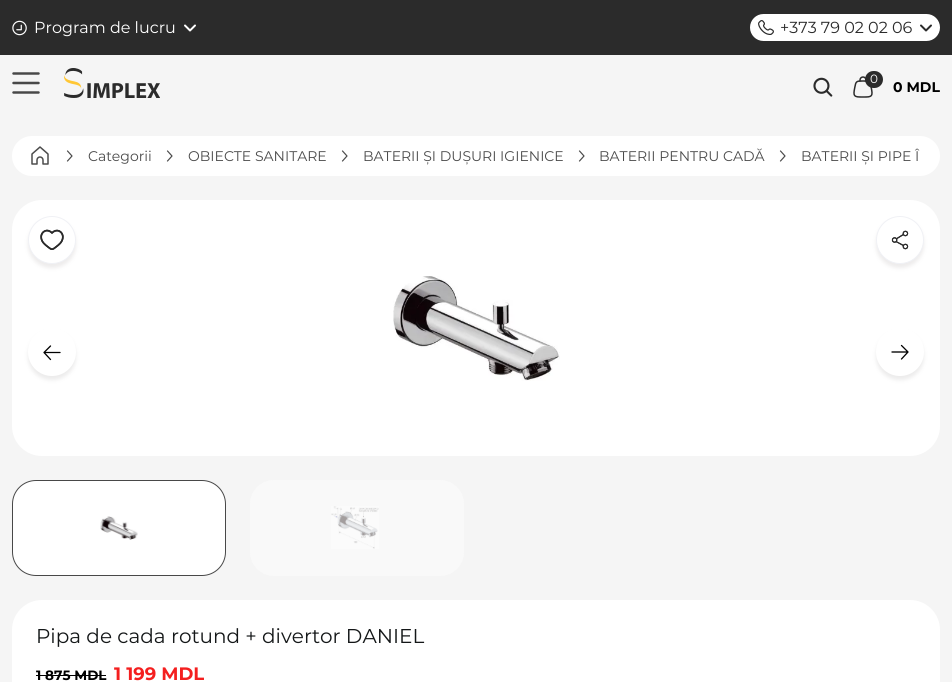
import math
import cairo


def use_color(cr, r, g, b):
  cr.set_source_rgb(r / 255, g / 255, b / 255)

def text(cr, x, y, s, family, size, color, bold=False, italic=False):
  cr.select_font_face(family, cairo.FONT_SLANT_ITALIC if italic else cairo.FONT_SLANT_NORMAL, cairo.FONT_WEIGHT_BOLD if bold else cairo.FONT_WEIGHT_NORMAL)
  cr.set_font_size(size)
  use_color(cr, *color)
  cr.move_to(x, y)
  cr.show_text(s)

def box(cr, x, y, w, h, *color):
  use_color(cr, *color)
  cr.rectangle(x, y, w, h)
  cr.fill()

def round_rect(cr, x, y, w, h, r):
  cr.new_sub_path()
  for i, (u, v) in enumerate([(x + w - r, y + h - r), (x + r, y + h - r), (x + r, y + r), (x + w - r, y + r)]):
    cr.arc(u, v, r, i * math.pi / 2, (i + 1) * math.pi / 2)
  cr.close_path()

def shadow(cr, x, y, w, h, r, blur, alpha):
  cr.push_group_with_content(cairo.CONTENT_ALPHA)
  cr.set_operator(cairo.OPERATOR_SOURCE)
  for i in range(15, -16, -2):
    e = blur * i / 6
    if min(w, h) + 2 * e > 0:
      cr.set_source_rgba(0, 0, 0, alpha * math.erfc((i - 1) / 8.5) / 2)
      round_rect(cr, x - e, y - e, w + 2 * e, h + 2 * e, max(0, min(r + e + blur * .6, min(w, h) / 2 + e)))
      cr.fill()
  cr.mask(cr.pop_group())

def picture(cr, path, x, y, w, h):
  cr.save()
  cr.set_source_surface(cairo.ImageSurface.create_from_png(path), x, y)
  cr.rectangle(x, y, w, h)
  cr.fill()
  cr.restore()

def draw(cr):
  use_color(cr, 245, 245, 245)
  cr.paint()
  box(cr, 0, 0, 952, 55, 43, 43, 43)
  picture(cr, "img_01.png", 12, 20, 15, 16)
  cr.new_path()
  cr.move_to(185, 25.5)
  cr.line_to(190, 30.5)
  cr.line_to(195, 25.5)
  use_color(cr, 255, 255, 255)
  cr.set_line_cap(cairo.LINE_CAP_ROUND)
  cr.set_line_join(cairo.LINE_JOIN_ROUND)
  cr.stroke()
  round_rect(cr, 750, 14, 190, 27, 13.5)
  cr.fill()
  picture(cr, "img_02.png", 758, 20, 16, 15)
  cr.new_path()
  cr.move_to(921, 25.5)
  cr.line_to(926, 30.5)
  cr.line_to(931, 25.5)
  use_color(cr, 43, 43, 43)
  cr.stroke()
  cr.new_path()
  cr.move_to(13.5, 73.5)
  cr.line_to(38.5, 73.5)
  cr.move_to(13.5, 83)
  cr.line_to(38.5, 83)
  cr.move_to(13.5, 92.5)
  cr.line_to(38.5, 92.5)
  use_color(cr, 72, 72, 72)
  cr.set_line_width(2.5)
  cr.stroke()
  picture(cr, "img_03.png", 64, 68, 96, 30)
  picture(cr, "img_04.png", 813, 77, 20, 20)
  picture(cr, "img_05.png", 853, 76, 20, 22)
  use_color(cr, 43, 43, 43)
  round_rect(cr, 865, 71, 18, 17, 8.5)
  cr.fill()
  use_color(cr, 255, 255, 255)
  round_rect(cr, 12, 136, 928, 40, 20)
  cr.fill()
  picture(cr, "img_06.png", 31, 146, 18, 19)
  cr.new_path()
  cr.move_to(67.5, 151)
  cr.line_to(72, 156)
  cr.line_to(67.5, 161)
  use_color(cr, 75, 75, 75)
  cr.set_line_width(1.2)
  cr.stroke()
  cr.new_path()
  cr.move_to(167.5, 151)
  cr.line_to(172, 156)
  cr.line_to(167.5, 161)
  cr.stroke()
  cr.new_path()
  cr.move_to(342.5, 151)
  cr.line_to(347, 156)
  cr.line_to(342.5, 161)
  cr.stroke()
  cr.new_path()
  cr.move_to(579.5, 151)
  cr.line_to(584, 156)
  cr.line_to(579.5, 161)
  cr.stroke()
  cr.new_path()
  cr.move_to(780.5, 151)
  cr.line_to(785, 156)
  cr.line_to(780.5, 161)
  cr.stroke()
  use_color(cr, 255, 255, 255)
  round_rect(cr, 12, 200, 928, 256, 30)
  cr.fill()
  picture(cr, "img_07.png", 393, 276, 167, 105)
  use_color(cr, 183, 177, 177)
  shadow(cr, 28, 220, 48, 48, 24, 2, 0.25)
  use_color(cr, 255, 255, 255)
  cr.arc(52, 240, 23.5, 0, 2 * math.pi)
  cr.fill_preserve()
  use_color(cr, 240, 241, 245)
  cr.set_line_width(1)
  cr.set_line_cap(cairo.LINE_CAP_BUTT)
  cr.set_line_join(cairo.LINE_JOIN_MITER)
  cr.stroke()
  picture(cr, "img_08.png", 40, 229, 24, 21)
  picture(cr, "img_09.png", 40, 229, 24, 21)
  use_color(cr, 183, 177, 177)
  shadow(cr, 876, 220, 48, 48, 24, 2, 0.25)
  use_color(cr, 255, 255, 255)
  cr.arc(900, 240, 23.5, 0, 2 * math.pi)
  cr.fill_preserve()
  use_color(cr, 240, 241, 245)
  cr.stroke()
  picture(cr, "img_10.png", 891, 230, 18, 20)
  picture(cr, "img_11.png", 891, 230, 18, 20)
  use_color(cr, 178, 176, 176)
  shadow(cr, 28, 332, 48, 48, 24, 2, 0.25)
  use_color(cr, 255, 255, 255)
  cr.arc(52, 352, 24, 0, 2 * math.pi)
  cr.fill()
  cr.new_path()
  cr.move_to(60, 352.5)
  cr.line_to(44, 352.5)
  cr.move_to(44, 352.5)
  cr.line_to(50.5, 346)
  cr.move_to(44, 352.5)
  cr.line_to(50.5, 359.5)
  use_color(cr, 0, 0, 0)
  cr.set_line_width(1.3)
  cr.set_line_cap(cairo.LINE_CAP_ROUND)
  cr.set_line_join(cairo.LINE_JOIN_ROUND)
  cr.stroke()
  use_color(cr, 178, 176, 176)
  shadow(cr, 876, 332, 48, 48, 24, 2, 0.25)
  use_color(cr, 255, 255, 255)
  cr.arc(900, 352, 24, 0, 2 * math.pi)
  cr.fill()
  cr.new_path()
  cr.move_to(892, 352)
  cr.line_to(908, 352)
  cr.move_to(908, 352)
  cr.line_to(901.5, 359)
  cr.move_to(908, 352)
  cr.line_to(901.5, 345.5)
  use_color(cr, 0, 0, 0)
  cr.stroke()
  use_color(cr, 255, 255, 255)
  round_rect(cr, 12.5, 480.5, 213, 95, 23.5)
  cr.fill_preserve()
  use_color(cr, 72, 72, 72)
  cr.set_line_width(1)
  cr.set_line_cap(cairo.LINE_CAP_BUTT)
  cr.set_line_join(cairo.LINE_JOIN_MITER)
  cr.stroke()
  picture(cr, "img_12.png", 100, 516, 38, 24)
  use_color(cr, 249, 249, 249)
  round_rect(cr, 250, 480, 214, 96, 24)
  cr.fill()
  picture(cr, "img_13.png", 331, 506, 48, 43)
  use_color(cr, 255, 255, 255)
  round_rect(cr, 12, 600, 928, 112, 30)
  cr.fill()
  box(cr, 36, 675, 70, 1, 0, 0, 0)
  text(cr, 34, 33, "Program de lucru", "Montserrat", 16, (255, 255, 255))
  text(cr, 780, 33, "+373 79 02 02 06", "Montserrat", 16, (43, 43, 43))
  text(cr, 870, 83, "0", "Montserrat", 12, (255, 255, 255))
  text(cr, 893, 92, "0 MDL", "Montserrat", 14, (0, 0, 0), bold=True)
  text(cr, 88, 161, "Categorii", "Montserrat", 14, (75, 75, 75))
  text(cr, 188, 161, "OBIECTE SANITARE", "Montserrat", 14, (75, 75, 75))
  text(cr, 363, 161, "BATERII ȘI DUȘURI IGIENICE", "Montserrat", 14, (75, 75, 75))
  text(cr, 599, 161, "BATERII PENTRU CADĂ", "Montserrat", 14, (75, 75, 75))
  text(cr, 801, 161, "BATERII ȘI PIPE Î", "Montserrat", 14, (75, 75, 75))
  text(cr, 36, 643, "Pipa de cada rotund + divertor DANIEL", "Montserrat", 20, (20, 23, 24))
  text(cr, 36, 680, "1 875 MDL", "Montserrat", 13.5, (0, 0, 0), bold=True)
  text(cr, 114, 680, "1 199 MDL", "Montserrat", 18, (244, 31, 31), bold=True)


surface = cairo.ImageSurface(cairo.FORMAT_RGB24, 952, 682)
cr = cairo.Context(surface)
options = cairo.FontOptions()
options.set_hint_metrics(cairo.HINT_METRICS_OFF)
options.set_hint_style(cairo.HINT_STYLE_NONE)
cr.set_font_options(options)
cr.set_miter_limit(4)
draw(cr)
surface.write_to_png("out.png")
